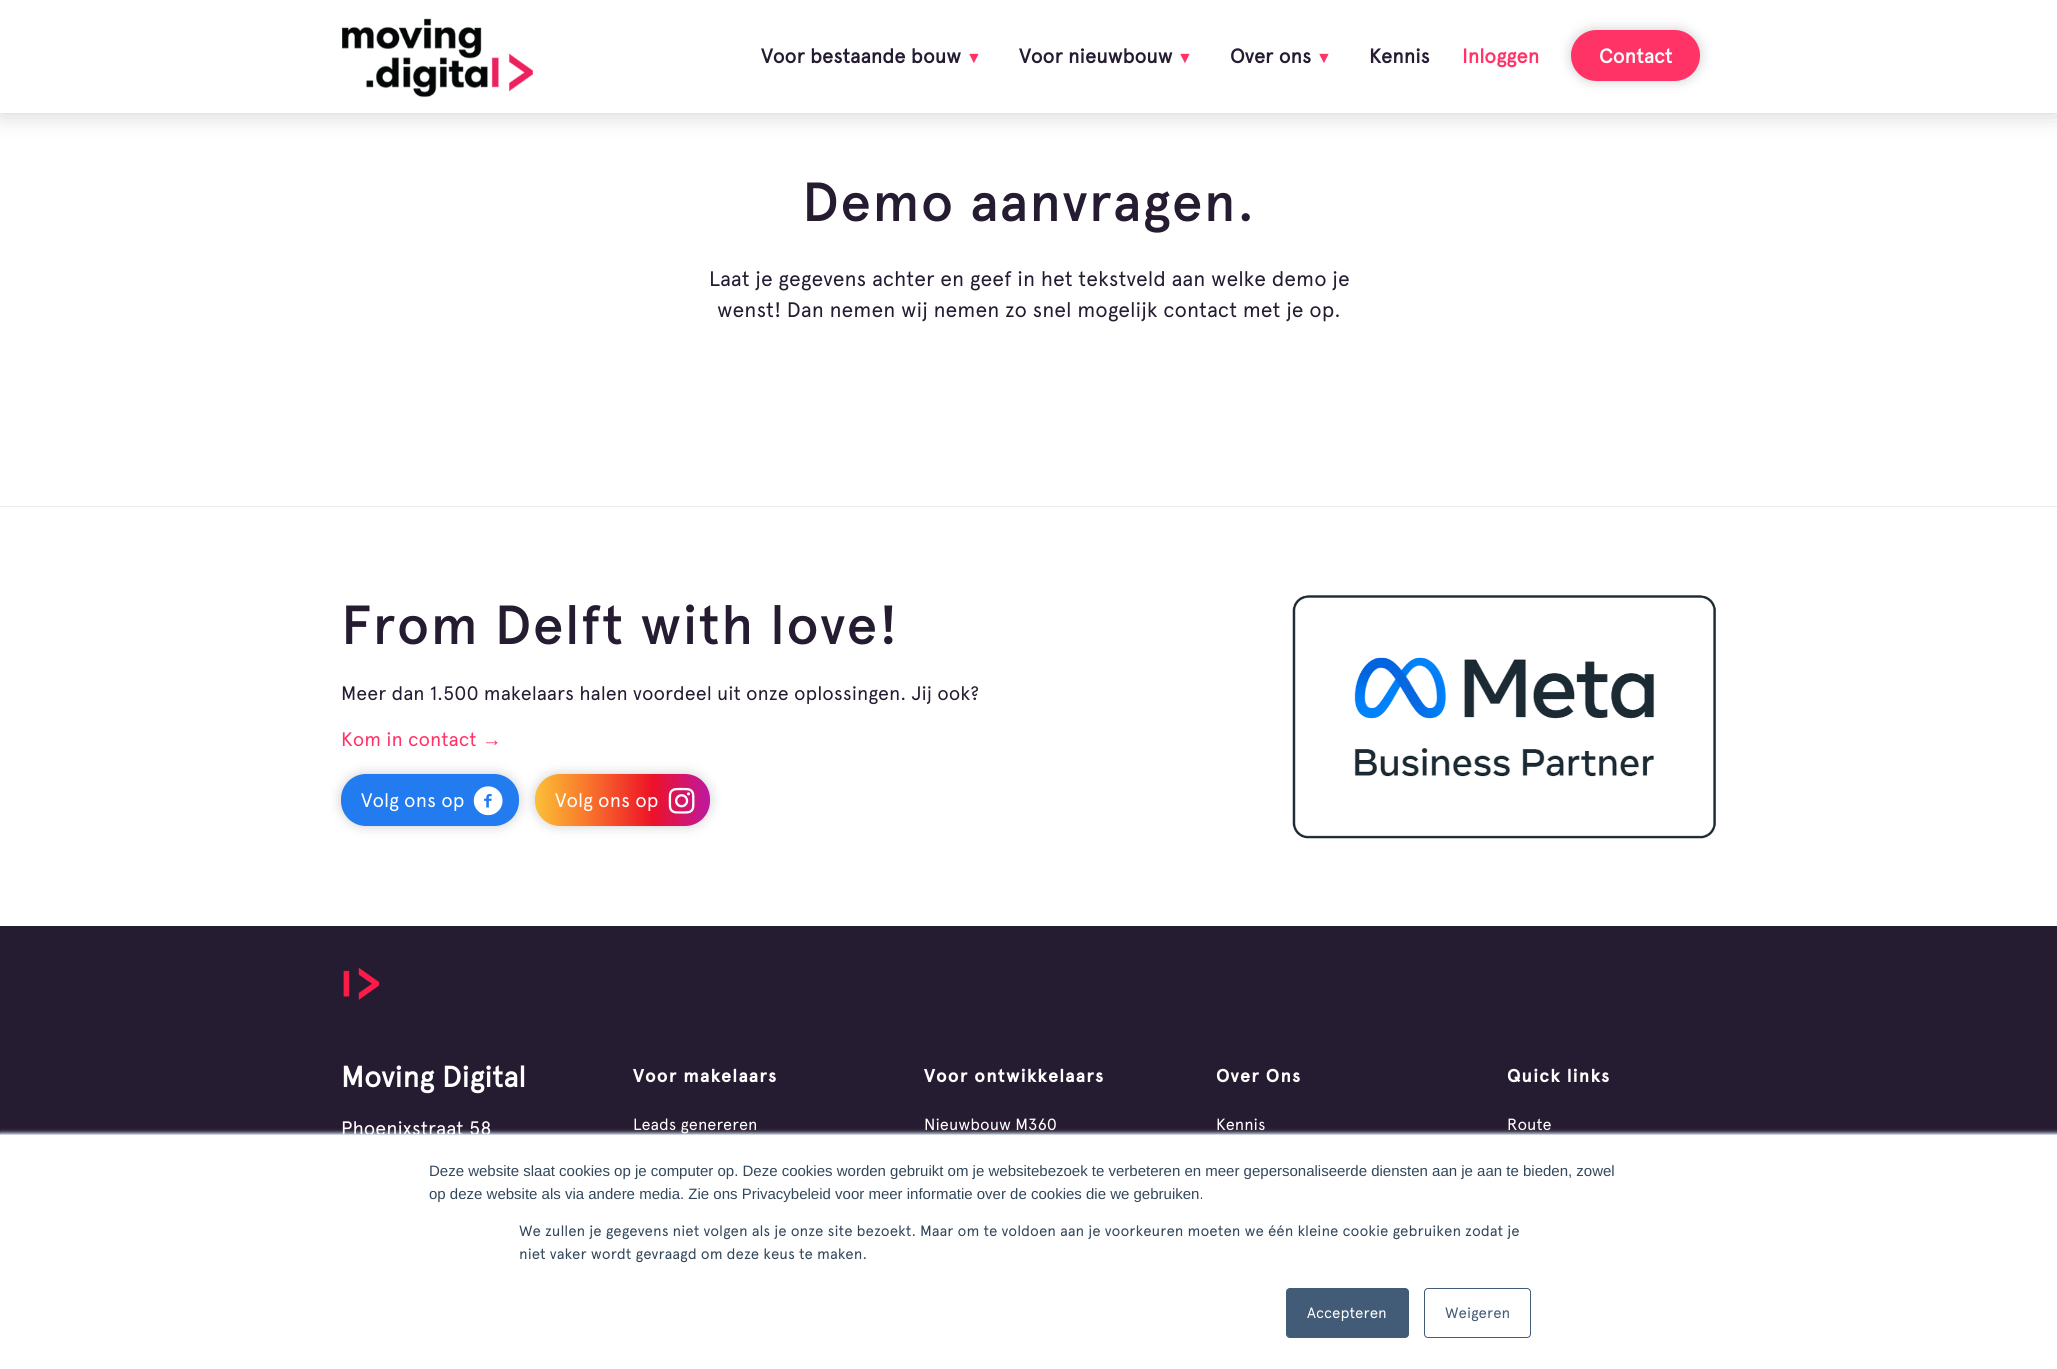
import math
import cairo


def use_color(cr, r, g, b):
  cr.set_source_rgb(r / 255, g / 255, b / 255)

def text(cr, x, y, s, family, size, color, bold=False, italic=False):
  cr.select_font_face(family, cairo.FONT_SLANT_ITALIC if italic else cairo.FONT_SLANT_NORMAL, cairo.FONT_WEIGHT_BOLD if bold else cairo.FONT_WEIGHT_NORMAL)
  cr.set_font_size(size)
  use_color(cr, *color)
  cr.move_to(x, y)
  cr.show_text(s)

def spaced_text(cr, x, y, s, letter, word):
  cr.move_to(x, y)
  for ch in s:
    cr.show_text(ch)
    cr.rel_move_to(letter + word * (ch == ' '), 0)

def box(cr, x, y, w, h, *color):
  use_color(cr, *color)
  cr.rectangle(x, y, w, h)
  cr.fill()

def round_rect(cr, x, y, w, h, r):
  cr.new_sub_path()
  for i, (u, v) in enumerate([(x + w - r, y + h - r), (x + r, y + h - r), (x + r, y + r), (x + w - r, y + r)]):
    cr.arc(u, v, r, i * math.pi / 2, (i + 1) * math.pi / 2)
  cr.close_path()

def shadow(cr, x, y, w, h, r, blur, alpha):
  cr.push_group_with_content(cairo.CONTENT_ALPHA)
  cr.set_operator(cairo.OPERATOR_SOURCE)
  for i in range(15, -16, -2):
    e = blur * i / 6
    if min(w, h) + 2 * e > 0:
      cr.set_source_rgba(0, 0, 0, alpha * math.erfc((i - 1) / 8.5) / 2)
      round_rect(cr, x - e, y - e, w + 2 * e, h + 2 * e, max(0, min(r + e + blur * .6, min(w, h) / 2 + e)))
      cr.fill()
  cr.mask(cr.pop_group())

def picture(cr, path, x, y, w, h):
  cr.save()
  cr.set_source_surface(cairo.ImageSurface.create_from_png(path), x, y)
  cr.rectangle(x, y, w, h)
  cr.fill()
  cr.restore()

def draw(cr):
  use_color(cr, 255, 255, 255)
  cr.paint()
  cr.save()
  cr.set_fill_rule(cairo.FILL_RULE_EVEN_ODD)
  cr.new_path()
  cr.move_to(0, 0)
  cr.line_to(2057, 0)
  cr.line_to(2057, 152)
  cr.line_to(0, 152)
  cr.close_path()
  cr.move_to(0, 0)
  cr.line_to(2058, 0)
  cr.line_to(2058, 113)
  cr.line_to(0, 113)
  cr.close_path()
  cr.clip()
  use_color(cr, 0, 0, 0)
  shadow(cr, 0, 0, 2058, 113, 0, 12.5, 0.2)
  cr.restore()
  cr.set_source_rgba(1, 1, 1, 0.85)
  cr.rectangle(0, 112, 2057, 1)
  cr.fill()
  picture(cr, "img_01.png", 342, 18, 191, 80)
  use_color(cr, 0, 0, 0)
  shadow(cr, 1571, 30, 129, 51, 25.5, 6, 0.2)
  use_color(cr, 255, 51, 102)
  round_rect(cr, 1572.5, 31.5, 126, 48, 24)
  cr.fill_preserve()
  cr.set_line_width(3)
  cr.stroke()
  box(cr, 0, 506, 2057, 1, 235, 235, 235)
  use_color(cr, 0, 0, 0)
  shadow(cr, 341, 774, 178, 52, 25, 6, 0.2)
  use_color(cr, 34, 123, 239)
  round_rect(cr, 341, 774, 178, 52, 25)
  cr.fill()
  picture(cr, "img_02.png", 473, 786, 30, 30)
  use_color(cr, 0, 0, 0)
  shadow(cr, 535, 774, 175, 52, 25, 6, 0.2)
  gradient = cairo.LinearGradient(535, 800, 710, 800)
  gradient.add_color_stop_rgba(0, 0.988, 0.753, 0.22, 1)
  gradient.add_color_stop_rgba(0.28, 0.976, 0.482, 0.173, 1)
  gradient.add_color_stop_rgba(0.67, 0.929, 0.071, 0.157, 1)
  gradient.add_color_stop_rgba(1, 0.745, 0.094, 0.627, 1)
  cr.set_source(gradient)
  round_rect(cr, 535, 774, 175, 52, 25)
  cr.fill()
  picture(cr, "img_03.png", 668, 787, 27, 27)
  picture(cr, "img_04.png", 1292, 595, 424, 244)
  box(cr, 0, 926, 2057, 208, 38, 28, 50)
  picture(cr, "img_05.png", 343, 967, 37, 33)
  use_color(cr, 234, 240, 246)
  shadow(cr, 0, 1133, 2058, 236, 0, 2, 1)
  box(cr, 0, 1135, 2057, 234, 255, 255, 255)
  use_color(cr, 66, 91, 118)
  round_rect(cr, 1286.5, 1288.5, 122, 49, 3.5)
  cr.fill_preserve()
  cr.set_line_width(1)
  cr.stroke()
  round_rect(cr, 1424.5, 1288.5, 106, 49, 3.5)
  cr.stroke()
  text(cr, 761, 63, "Voor bestaande bouw", "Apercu", 20, (38, 28, 50), bold=True)
  text(cr, 966, 63, "▼", "Liberation Serif", 16, (255, 51, 102), bold=True)
  text(cr, 1019, 63, "Voor nieuwbouw", "Apercu", 20, (38, 28, 50), bold=True)
  text(cr, 1177, 63, "▼", "Liberation Serif", 16, (255, 51, 102), bold=True)
  text(cr, 1230, 63, "Over ons", "Apercu", 20, (38, 28, 50), bold=True)
  text(cr, 1316, 63, "▼", "Liberation Serif", 16, (255, 51, 102), bold=True)
  text(cr, 1369, 63, "Kennis", "Apercu", 20, (38, 28, 50), bold=True)
  text(cr, 1462, 63, "Inloggen", "Apercu", 20, (255, 51, 102), bold=True)
  text(cr, 1599, 63, "Contact", "Apercu", 20, (255, 255, 255), bold=True)
  cr.select_font_face("Apercu Medium")
  cr.set_font_size(55)
  use_color(cr, 38, 28, 50)
  spaced_text(cr, 802, 221, "Demo aanvragen.", 1.25, 0)
  text(cr, 709, 286, "Laat je gegevens achter en geef in het tekstveld aan welke demo je", "Apercu", 21, (38, 28, 50))
  text(cr, 717, 317, "wenst! Dan nemen wij nemen zo snel mogelijk contact met je op.", "Apercu", 21, (38, 28, 50))
  cr.select_font_face("Apercu Medium")
  cr.set_font_size(55)
  spaced_text(cr, 341, 644, "From Delft with love!", 1.25, 0)
  text(cr, 341, 700, "Meer dan 1.500 makelaars halen voordeel uit onze oplossingen. Jij ook?", "Apercu", 19.5, (38, 28, 50))
  text(cr, 341, 746, "Kom in contact", "Apercu", 19.5, (255, 51, 102))
  text(cr, 482, 746, "→", "Liberation Serif", 19.5, (255, 51, 102))
  text(cr, 361, 807, "Volg ons op", "Apercu", 19.5, (255, 255, 255))
  text(cr, 555, 807, "Volg ons op", "Apercu", 19.5, (255, 255, 255))
  text(cr, 341, 1087, "Moving Digital", "Apercu", 29.25, (255, 255, 255), bold=True)
  text(cr, 341, 1135, "Phoenixstraat 58", "Apercu", 19.5, (255, 255, 255))
  cr.select_font_face("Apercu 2", cairo.FONT_SLANT_NORMAL, cairo.FONT_WEIGHT_BOLD)
  cr.set_font_size(17.9)
  spaced_text(cr, 633, 1082, "Voor makelaars", 1.25, 0)
  text(cr, 633, 1130, "Leads genereren", "Apercu", 16.25, (255, 255, 255))
  cr.select_font_face("Apercu 2", cairo.FONT_SLANT_NORMAL, cairo.FONT_WEIGHT_BOLD)
  cr.set_font_size(17.9)
  spaced_text(cr, 924, 1082, "Voor ontwikkelaars", 1.25, 0)
  text(cr, 924, 1130, "Nieuwbouw M360", "Apercu", 16.25, (255, 255, 255))
  cr.select_font_face("Apercu 2", cairo.FONT_SLANT_NORMAL, cairo.FONT_WEIGHT_BOLD)
  cr.set_font_size(17.9)
  spaced_text(cr, 1216, 1082, "Over Ons", 1.25, 0)
  text(cr, 1216, 1130, "Kennis", "Apercu", 16.25, (255, 255, 255))
  cr.select_font_face("Apercu 2", cairo.FONT_SLANT_NORMAL, cairo.FONT_WEIGHT_BOLD)
  cr.set_font_size(17.9)
  spaced_text(cr, 1507, 1082, "Quick links", 1.25, 0)
  text(cr, 1507, 1130, "Route", "Apercu", 16.25, (255, 255, 255))
  box(cr, 0, 1134, 2057, 1, 203, 214, 226)
  text(cr, 429, 1176, "Deze website slaat cookies op je computer op. Deze cookies worden gebruikt om je websitebezoek te verbeteren en meer gepersonaliseerde diensten aan je aan te bieden, zowel", "Liberation Sans", 15, (51, 71, 91))
  text(cr, 429, 1199, "op deze website als via andere media. Zie ons Privacybeleid voor meer informatie over de cookies die we gebruiken.", "Liberation Sans", 15, (51, 71, 91))
  text(cr, 519, 1236, "We zullen je gegevens niet volgen als je onze site bezoekt. Maar om te voldoen aan je voorkeuren moeten we één kleine cookie gebruiken zodat je", "Apercu", 15, (51, 71, 91))
  text(cr, 519, 1259, "niet vaker wordt gevraagd om deze keus te maken.", "Apercu", 15, (51, 71, 91))
  text(cr, 1307, 1318, "Accepteren", "Apercu", 15, (255, 255, 255))
  text(cr, 1445, 1318, "Weigeren", "Apercu", 15, (66, 91, 118))


surface = cairo.ImageSurface(cairo.FORMAT_RGB24, 2057, 1369)
cr = cairo.Context(surface)
options = cairo.FontOptions()
options.set_hint_metrics(cairo.HINT_METRICS_OFF)
options.set_hint_style(cairo.HINT_STYLE_NONE)
cr.set_font_options(options)
cr.set_miter_limit(4)
draw(cr)
surface.write_to_png("out.png")
